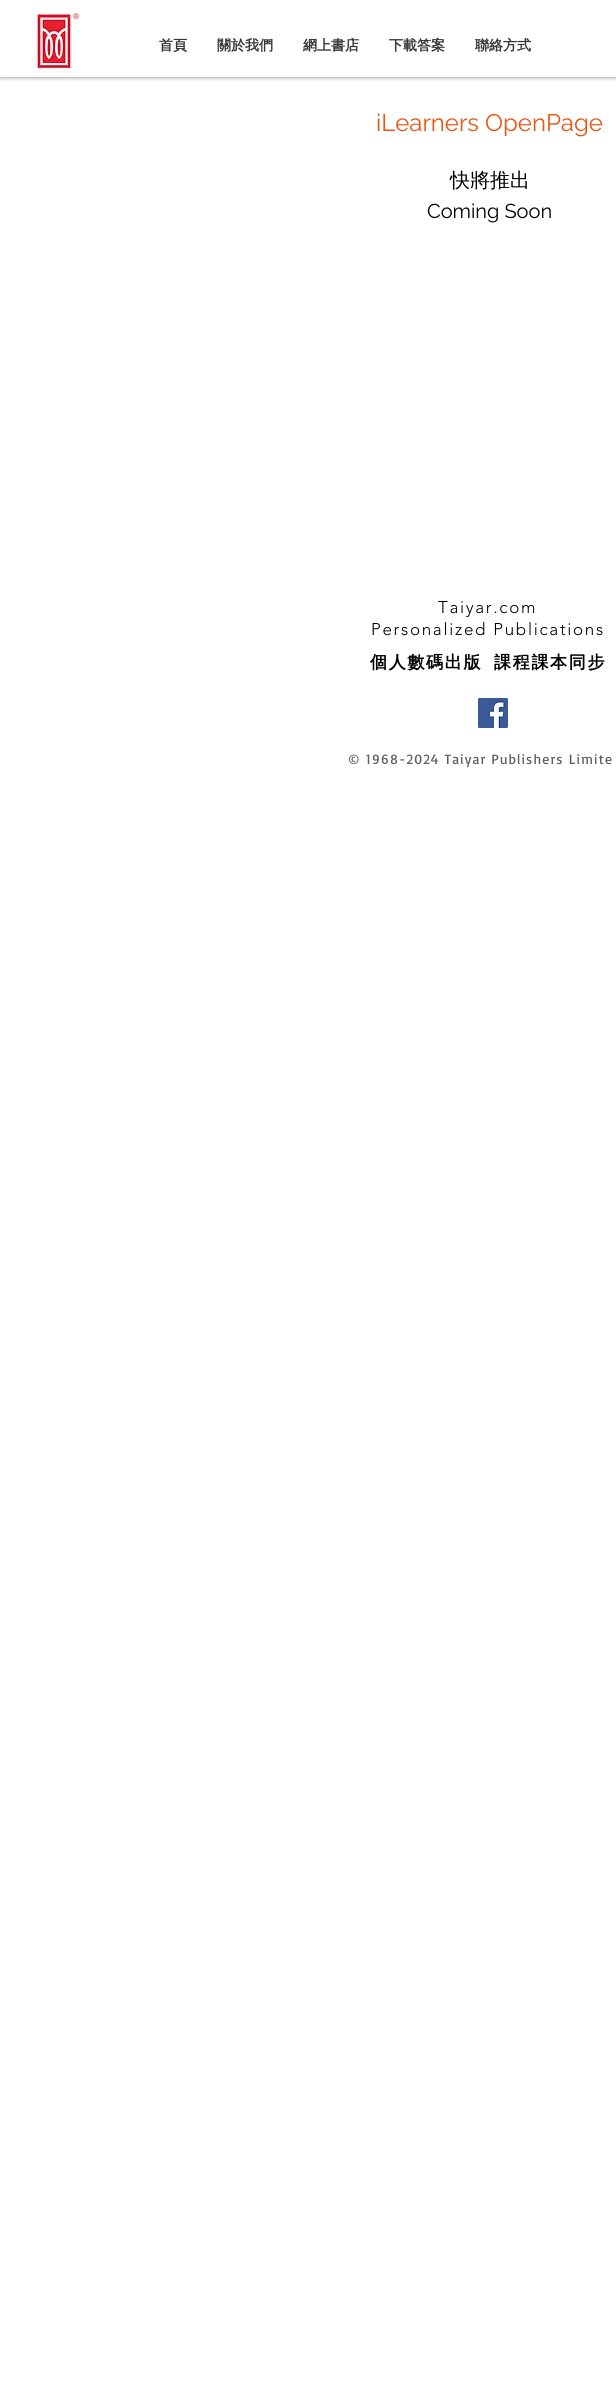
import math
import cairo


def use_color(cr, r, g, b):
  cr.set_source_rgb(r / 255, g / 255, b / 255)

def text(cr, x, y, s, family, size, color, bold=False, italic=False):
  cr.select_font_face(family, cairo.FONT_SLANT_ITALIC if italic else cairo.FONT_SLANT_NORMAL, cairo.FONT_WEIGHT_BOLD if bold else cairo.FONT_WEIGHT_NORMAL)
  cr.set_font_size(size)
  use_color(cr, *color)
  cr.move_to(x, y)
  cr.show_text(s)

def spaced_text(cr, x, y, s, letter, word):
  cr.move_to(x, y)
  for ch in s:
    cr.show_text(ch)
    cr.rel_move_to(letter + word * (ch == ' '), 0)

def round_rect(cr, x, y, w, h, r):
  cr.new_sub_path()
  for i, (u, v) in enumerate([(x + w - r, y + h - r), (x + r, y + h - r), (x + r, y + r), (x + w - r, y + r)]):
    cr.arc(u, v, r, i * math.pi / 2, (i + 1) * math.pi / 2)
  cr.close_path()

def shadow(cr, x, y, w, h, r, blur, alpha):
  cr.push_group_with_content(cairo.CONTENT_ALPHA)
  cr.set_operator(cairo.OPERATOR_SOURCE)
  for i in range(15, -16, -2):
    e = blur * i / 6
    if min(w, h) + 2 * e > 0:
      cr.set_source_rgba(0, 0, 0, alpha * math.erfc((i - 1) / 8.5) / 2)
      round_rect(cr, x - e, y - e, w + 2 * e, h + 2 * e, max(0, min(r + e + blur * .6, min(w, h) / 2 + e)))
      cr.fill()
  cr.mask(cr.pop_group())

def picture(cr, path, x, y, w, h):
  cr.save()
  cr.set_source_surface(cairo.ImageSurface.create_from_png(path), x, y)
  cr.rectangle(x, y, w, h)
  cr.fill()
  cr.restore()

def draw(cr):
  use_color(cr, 255, 255, 255)
  cr.paint()
  cr.save()
  cr.rectangle(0, 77, 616, 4)
  cr.clip()
  use_color(cr, 0, 0, 0)
  shadow(cr, 0, 0, 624, 77, 0, 2.5, 0.5)
  cr.restore()
  picture(cr, "img_01.png", 35, 12, 46, 58)
  picture(cr, "img_02.png", 478, 698, 30, 30)
  text(cr, 159, 50, "首頁", "WenQuanYi Zen Hei", 14, (54, 54, 54), bold=True)
  text(cr, 217, 50, "關於我們", "WenQuanYi Zen Hei", 14, (54, 54, 54), bold=True)
  text(cr, 303, 50, "網上書店", "WenQuanYi Zen Hei", 14, (54, 54, 54), bold=True)
  text(cr, 389, 50, "下載答案", "WenQuanYi Zen Hei", 14, (54, 54, 54), bold=True)
  text(cr, 475, 50, "聯絡方式", "WenQuanYi Zen Hei", 14, (54, 54, 54), bold=True)
  text(cr, 376, 131, "iLearners OpenPage", "Raleway", 24, (233, 85, 19))
  text(cr, 450, 187, "快將推出", "WenQuanYi Zen Hei Medium", 20, (0, 0, 0))
  text(cr, 427, 218, "Coming Soon", "Raleway", 20, (0, 0, 0))
  cr.select_font_face("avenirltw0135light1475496 Light")
  cr.set_font_size(17)
  spaced_text(cr, 438, 613, "Taiyar.com", 1.7, 0)
  spaced_text(cr, 371, 635, "Personalized Publications", 1.7, 0)
  cr.select_font_face("WenQuanYi Zen Hei", cairo.FONT_SLANT_NORMAL, cairo.FONT_WEIGHT_BOLD)
  spaced_text(cr, 370, 668, "個人數碼出版", 1.7, 0)
  spaced_text(cr, 494, 668, "課程課本同步", 1.7, 0)
  cr.select_font_face("Basic")
  cr.set_font_size(14)
  use_color(cr, 96, 94, 94)
  spaced_text(cr, 348, 764, "© 1968-2024 Taiyar Publishers Limite", 1.1, 0)


surface = cairo.ImageSurface(cairo.FORMAT_RGB24, 616, 2398)
cr = cairo.Context(surface)
options = cairo.FontOptions()
options.set_hint_metrics(cairo.HINT_METRICS_OFF)
options.set_hint_style(cairo.HINT_STYLE_NONE)
cr.set_font_options(options)
cr.set_miter_limit(4)
draw(cr)
surface.write_to_png("out.png")
